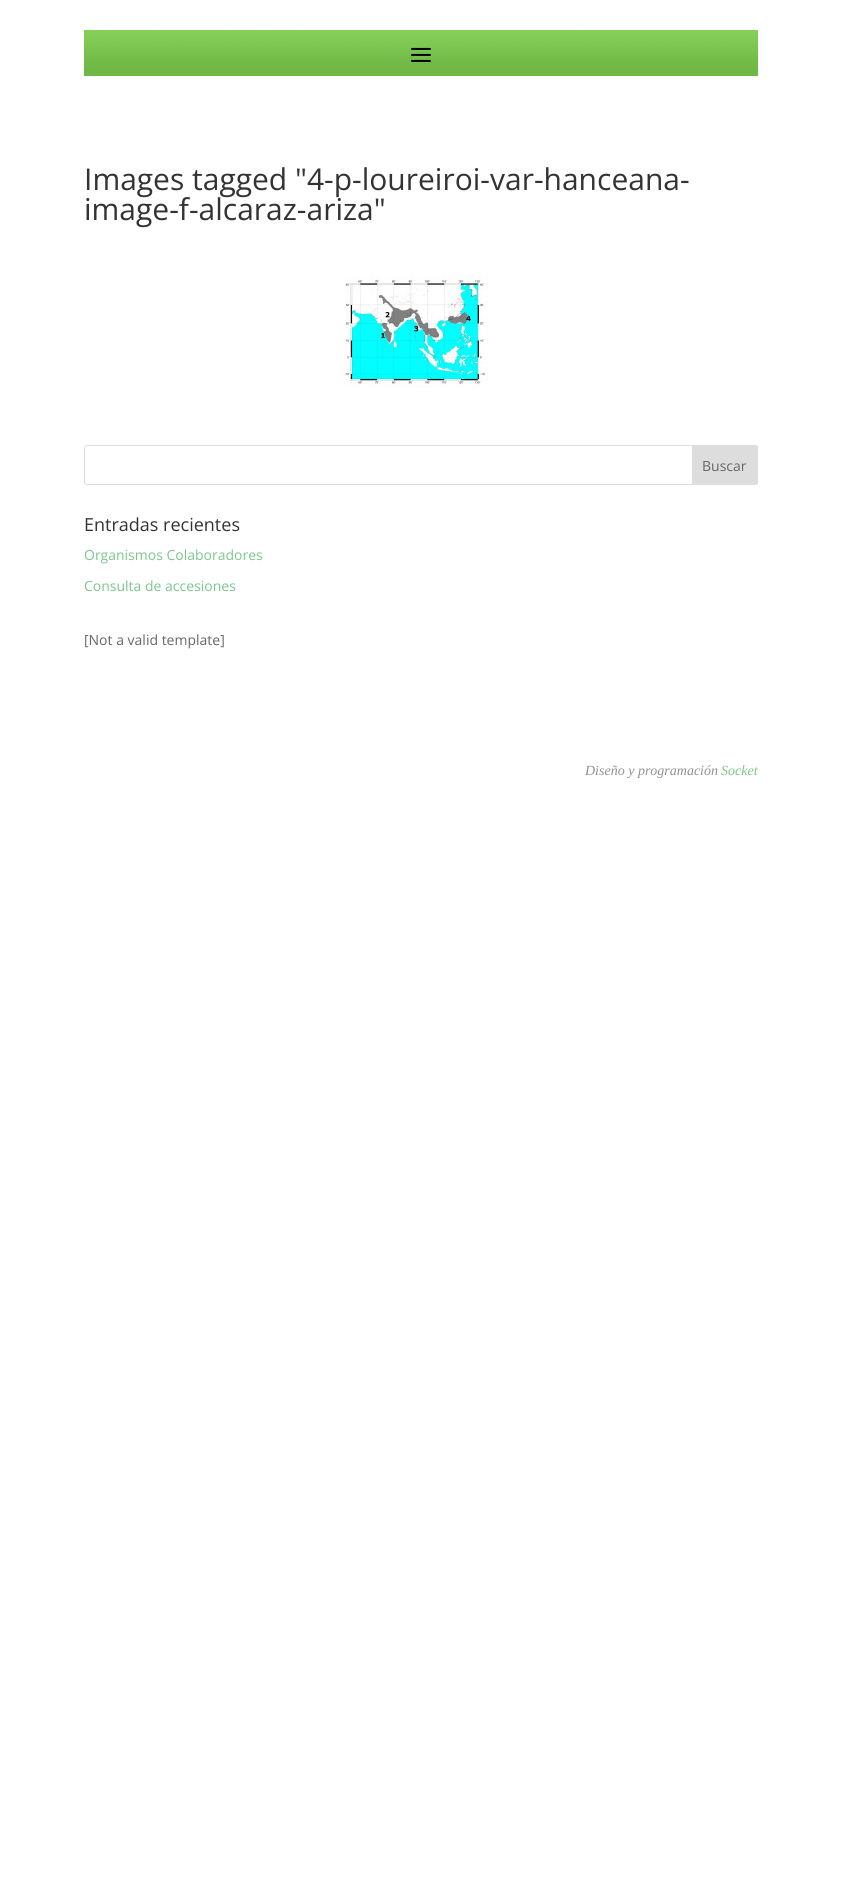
import math
import cairo


def use_color(cr, r, g, b):
  cr.set_source_rgb(r / 255, g / 255, b / 255)

def text(cr, x, y, s, family, size, color, bold=False, italic=False):
  cr.select_font_face(family, cairo.FONT_SLANT_ITALIC if italic else cairo.FONT_SLANT_NORMAL, cairo.FONT_WEIGHT_BOLD if bold else cairo.FONT_WEIGHT_NORMAL)
  cr.set_font_size(size)
  use_color(cr, *color)
  cr.move_to(x, y)
  cr.show_text(s)

def round_rect(cr, x, y, w, h, r):
  cr.new_sub_path()
  for i, (u, v) in enumerate([(x + w - r, y + h - r), (x + r, y + h - r), (x + r, y + r), (x + w - r, y + r)]):
    cr.arc(u, v, r, i * math.pi / 2, (i + 1) * math.pi / 2)
  cr.close_path()

def picture(cr, path, x, y, w, h):
  cr.save()
  cr.set_source_surface(cairo.ImageSurface.create_from_png(path), x, y)
  cr.rectangle(x, y, w, h)
  cr.fill()
  cr.restore()

def draw(cr):
  use_color(cr, 255, 255, 255)
  cr.paint()
  picture(cr, "img_01.png", 84, 30, 674, 46)
  picture(cr, "img_02.png", 411, 47, 20, 15)
  picture(cr, "img_03.png", 343, 276, 147, 112)
  round_rect(cr, 84.5, 445.5, 673, 39, 2.5)
  use_color(cr, 221, 221, 221)
  cr.set_line_width(1)
  cr.stroke()
  cr.new_path()
  cr.move_to(692.5, 445.5)
  cr.line_to(755, 445.5)
  cr.curve_to(756.5, 445.5, 757.5, 446.5, 757.5, 448)
  cr.line_to(757.5, 482)
  cr.curve_to(757.5, 483.5, 756.5, 484.5, 755, 484.5)
  cr.line_to(692.5, 484.5)
  cr.close_path()
  cr.fill_preserve()
  cr.stroke()
  text(cr, 84, 190, "Images tagged \"4-p-loureiroi-var-hanceana-", "Open Sans", 30, (51, 51, 51))
  text(cr, 84, 220, "image-f-alcaraz-ariza\"", "Open Sans", 30, (51, 51, 51))
  text(cr, 702, 471, "Buscar", "Open Sans", 14, (102, 102, 102))
  text(cr, 84, 531, "Entradas recientes", "Open Sans", 18, (51, 51, 51))
  text(cr, 84, 560, "Organismos Colaboradores", "Open Sans", 14, (124, 198, 141))
  text(cr, 84, 591, "Consulta de accesiones", "Open Sans", 14, (124, 198, 141))
  text(cr, 84, 645, "[Not a valid template]", "Open Sans", 14, (102, 102, 102))
  text(cr, 585, 775, "Diseño y programación", "Liberation Serif", 14, (145, 145, 145), italic=True)
  text(cr, 721, 775, "Socket", "Liberation Serif", 14, (124, 198, 141), italic=True)


surface = cairo.ImageSurface(cairo.FORMAT_RGB24, 842, 1884)
cr = cairo.Context(surface)
options = cairo.FontOptions()
options.set_hint_metrics(cairo.HINT_METRICS_OFF)
options.set_hint_style(cairo.HINT_STYLE_NONE)
cr.set_font_options(options)
cr.set_miter_limit(4)
draw(cr)
surface.write_to_png("out.png")
